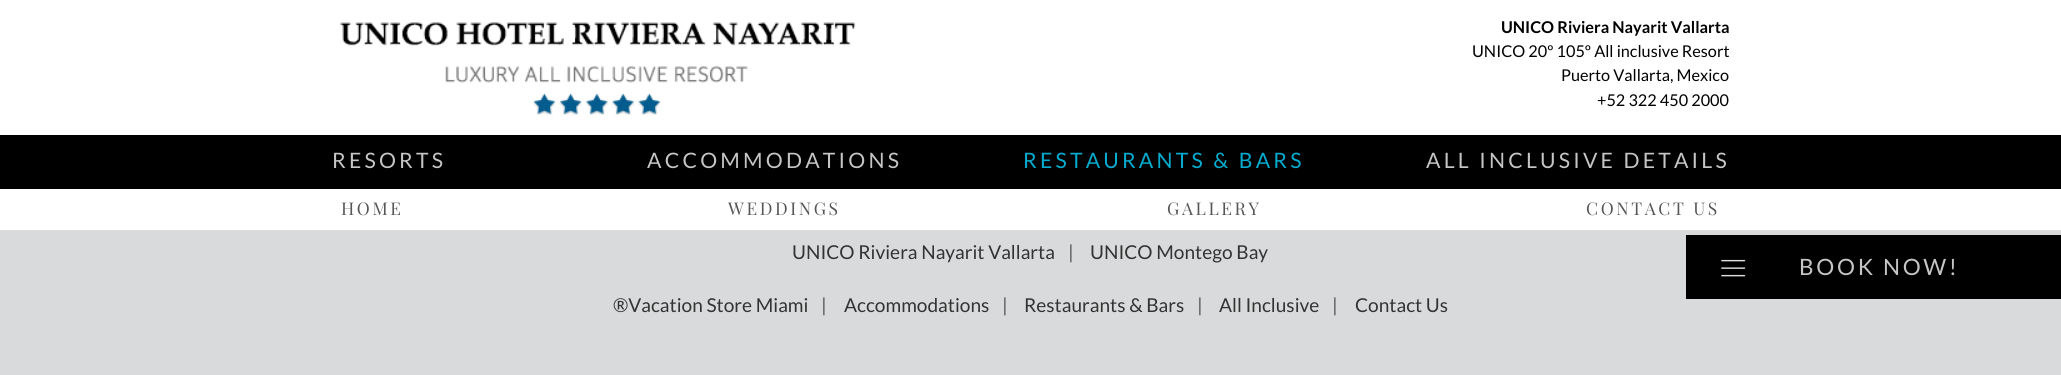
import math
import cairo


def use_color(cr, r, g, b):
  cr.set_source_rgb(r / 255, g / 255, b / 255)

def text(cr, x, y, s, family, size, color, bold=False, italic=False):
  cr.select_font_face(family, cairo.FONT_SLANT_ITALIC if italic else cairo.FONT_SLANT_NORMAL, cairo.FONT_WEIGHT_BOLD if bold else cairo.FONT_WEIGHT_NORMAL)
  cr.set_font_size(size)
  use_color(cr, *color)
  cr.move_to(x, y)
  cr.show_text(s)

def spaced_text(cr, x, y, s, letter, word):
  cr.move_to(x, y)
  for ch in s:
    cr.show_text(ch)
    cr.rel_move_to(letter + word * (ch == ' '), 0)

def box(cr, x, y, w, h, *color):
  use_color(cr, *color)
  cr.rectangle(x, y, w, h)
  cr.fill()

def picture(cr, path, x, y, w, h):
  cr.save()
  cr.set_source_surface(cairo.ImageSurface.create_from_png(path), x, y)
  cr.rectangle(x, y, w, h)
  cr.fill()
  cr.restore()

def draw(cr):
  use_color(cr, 217, 218, 219)
  cr.paint()
  box(cr, 0, 0, 2061, 135, 255, 255, 255)
  picture(cr, "img_01.png", 340, 22, 516, 93)
  box(cr, 0, 135, 2061, 54, 0, 0, 0)
  box(cr, 1686, 235, 375, 64, 0, 0, 0)
  picture(cr, "img_02.png", 1721, 259, 25, 18)
  box(cr, 0, 189, 2061, 41, 255, 255, 255)
  text(cr, 1501, 33, "UNICO Riviera Nayarit Vallarta", "Lato", 16.25, (0, 0, 0), bold=True)
  text(cr, 1472, 57, "UNICO 20º 105º All inclusive Resort", "Lato", 16.25, (0, 0, 0))
  text(cr, 1561, 81, "Puerto Vallarta, Mexico", "Lato", 16.25, (0, 0, 0))
  text(cr, 1597, 106, "+52 322 450 2000", "Lato", 16.25, (0, 0, 0))
  cr.set_font_size(21.25)
  use_color(cr, 197, 197, 197)
  spaced_text(cr, 332, 168, "RESORTS", 3.2, 0)
  spaced_text(cr, 647, 168, "ACCOMMODATIONS", 3.2, 0)
  use_color(cr, 4, 171, 206)
  spaced_text(cr, 1023, 168, "RESTAURANTS & BARS", 3.2, 0)
  use_color(cr, 197, 197, 197)
  spaced_text(cr, 1426, 168, "ALL INCLUSIVE DETAILS", 3.2, 0)
  cr.set_font_size(22.5)
  spaced_text(cr, 1799, 275, "BOOK NOW!", 2.75, 0)
  cr.select_font_face("Playfair Display")
  cr.set_font_size(17.5)
  use_color(cr, 85, 85, 85)
  spaced_text(cr, 341, 215, "HOME", 2.6, 0)
  spaced_text(cr, 728, 215, "WEDDINGS", 2.6, 0)
  spaced_text(cr, 1167, 215, "GALLERY", 2.6, 0)
  spaced_text(cr, 1586, 215, "CONTACT US", 2.6, 0)
  text(cr, 792, 259, "UNICO Riviera Nayarit Vallarta", "Lato", 19.1, (51, 51, 51))
  text(cr, 1068, 259, "|", "Lato", 19.1, (85, 85, 85))
  text(cr, 1090, 259, "UNICO Montego Bay", "Lato", 19.1, (51, 51, 51))
  text(cr, 613, 312, "®Vacation Store Miami", "Lato", 19.1, (51, 51, 51))
  text(cr, 821, 312, "|", "Lato", 19.1, (85, 85, 85))
  text(cr, 844, 312, "Accommodations", "Lato", 19.1, (51, 51, 51))
  text(cr, 1002, 312, "|", "Lato", 19.1, (85, 85, 85))
  text(cr, 1024, 312, "Restaurants & Bars", "Lato", 19.1, (51, 51, 51))
  text(cr, 1197, 312, "|", "Lato", 19.1, (85, 85, 85))
  text(cr, 1219, 312, "All Inclusive", "Lato", 19.1, (51, 51, 51))
  text(cr, 1332, 312, "|", "Lato", 19.1, (85, 85, 85))
  text(cr, 1355, 312, "Contact Us", "Lato", 19.1, (51, 51, 51))


surface = cairo.ImageSurface(cairo.FORMAT_RGB24, 2061, 375)
cr = cairo.Context(surface)
options = cairo.FontOptions()
options.set_hint_metrics(cairo.HINT_METRICS_OFF)
options.set_hint_style(cairo.HINT_STYLE_NONE)
cr.set_font_options(options)
cr.set_miter_limit(4)
draw(cr)
surface.write_to_png("out.png")
